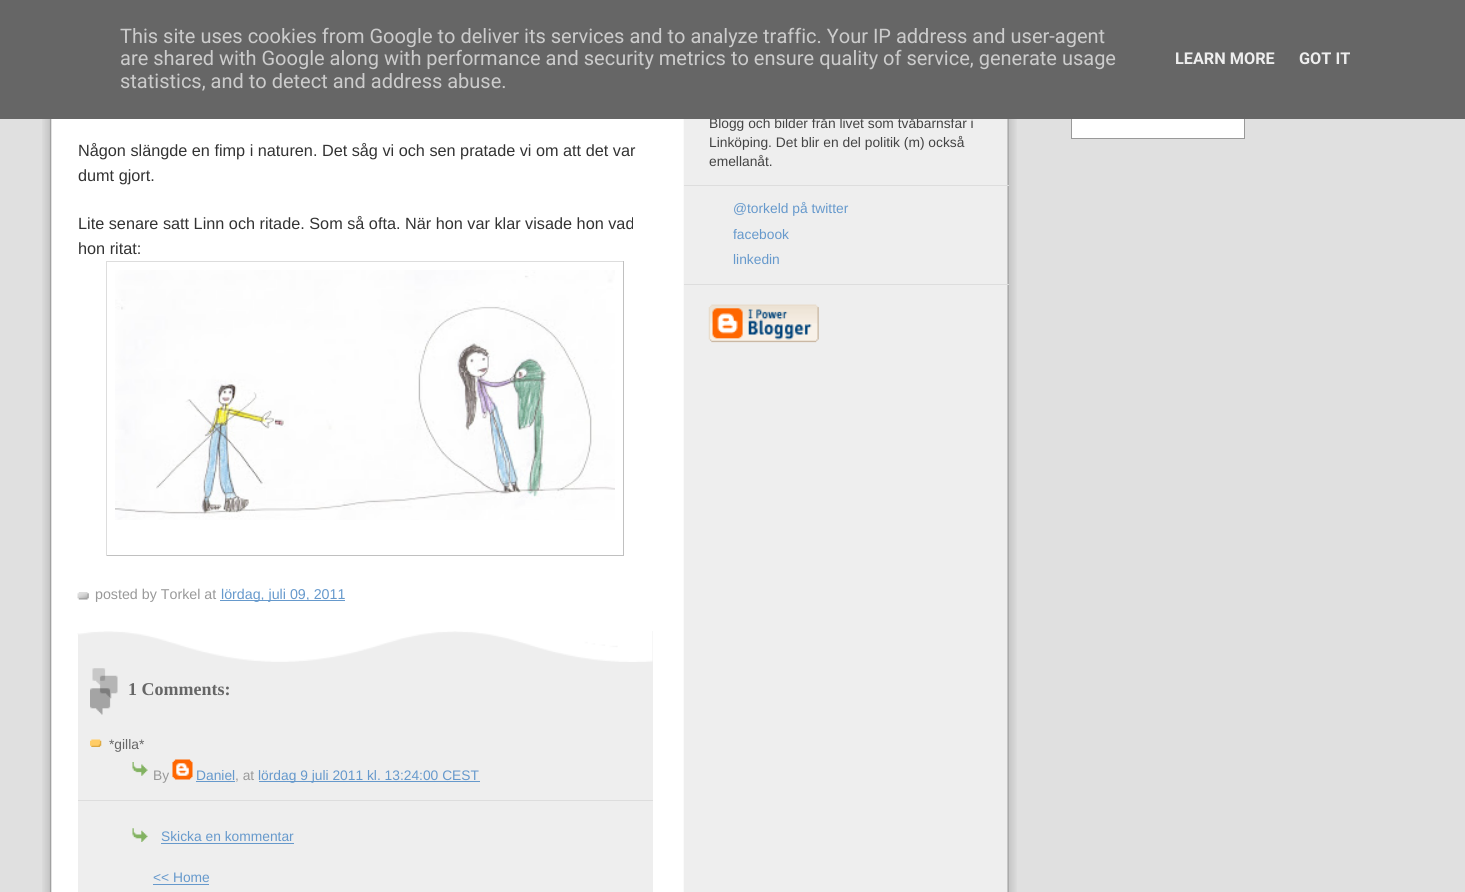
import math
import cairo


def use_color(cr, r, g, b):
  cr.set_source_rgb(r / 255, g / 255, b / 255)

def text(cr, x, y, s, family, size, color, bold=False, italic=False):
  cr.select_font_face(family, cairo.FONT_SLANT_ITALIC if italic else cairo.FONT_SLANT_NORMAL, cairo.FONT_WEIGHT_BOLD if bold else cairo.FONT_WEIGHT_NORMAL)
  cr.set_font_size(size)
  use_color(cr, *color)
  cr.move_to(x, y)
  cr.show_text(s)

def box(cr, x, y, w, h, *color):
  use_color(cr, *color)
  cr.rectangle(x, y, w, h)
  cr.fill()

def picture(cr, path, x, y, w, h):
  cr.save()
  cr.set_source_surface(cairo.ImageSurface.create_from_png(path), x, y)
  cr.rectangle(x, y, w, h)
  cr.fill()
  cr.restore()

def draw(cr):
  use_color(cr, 224, 224, 224)
  cr.paint()
  box(cr, 1072, 119, 172, 19, 255, 255, 255)
  cr.rectangle(1071.5, 49.5, 173, 89)
  use_color(cr, 153, 153, 153)
  cr.set_line_width(1)
  cr.stroke()
  picture(cr, "img_01.png", 42, 119, 975, 773)
  box(cr, 106, 261, 518, 1, 221, 221, 221)
  box(cr, 623, 261, 1, 295, 192, 192, 192)
  box(cr, 106, 555, 518, 1, 192, 192, 192)
  box(cr, 106, 261, 1, 295, 221, 221, 221)
  picture(cr, "img_02.png", 115, 270, 500, 250)
  picture(cr, "img_03.png", 77, 592, 12, 8)
  box(cr, 220, 600, 125, 1, 102, 153, 204)
  box(cr, 78, 631, 575, 261, 238, 238, 238)
  picture(cr, "img_04.png", 77, 631, 576, 31)
  picture(cr, "img_05.png", 90, 668, 28, 47)
  picture(cr, "img_06.png", 90, 739, 12, 8)
  picture(cr, "img_07.png", 132, 762, 16, 14)
  box(cr, 78, 800, 575, 1, 221, 221, 221)
  picture(cr, "img_08.png", 172, 759, 21, 21)
  box(cr, 196, 781, 39, 1, 102, 153, 204)
  box(cr, 259, 781, 221, 1, 102, 153, 204)
  picture(cr, "img_09.png", 132, 828, 16, 14)
  box(cr, 161, 843, 133, 1, 102, 153, 204)
  box(cr, 153, 884, 56, 1, 102, 153, 204)
  box(cr, 684, 185, 325, 1, 221, 221, 221)
  box(cr, 684, 284, 325, 1, 221, 221, 221)
  picture(cr, "img_10.png", 708, 304, 111, 39)
  text(cr, 78, 156, "Någon slängde en fimp i naturen. Det såg vi och sen pratade vi om att det var", "Liberation Sans", 16.25, (51, 51, 51))
  text(cr, 78, 181, "dumt gjort.", "Liberation Sans", 16.25, (51, 51, 51))
  text(cr, 78, 229, "Lite senare satt Linn och ritade. Som så ofta. När hon var klar visade hon vad", "Liberation Sans", 16.25, (51, 51, 51))
  text(cr, 78, 254, "hon ritat:", "Liberation Sans", 16.25, (51, 51, 51))
  text(cr, 95, 599, "posted by Torkel at", "Liberation Sans", 14.25, (153, 153, 153))
  text(cr, 221, 599, "lördag, juli 09, 2011", "Liberation Sans", 14.25, (102, 153, 204))
  text(cr, 128, 695, "1 Comments:", "Liberation Serif", 18, (102, 102, 102), bold=True)
  text(cr, 109, 749, "*gilla*", "Liberation Sans", 13.8, (102, 102, 102))
  text(cr, 153, 780, "By", "Liberation Sans", 13.8, (153, 153, 153))
  text(cr, 196, 780, "Daniel", "Liberation Sans", 13.8, (102, 153, 204))
  text(cr, 235, 780, ", at", "Liberation Sans", 13.8, (153, 153, 153))
  text(cr, 258, 780, "lördag 9 juli 2011 kl. 13:24:00 CEST", "Liberation Sans", 13.8, (102, 153, 204))
  text(cr, 161, 841, "Skicka en kommentar", "Liberation Sans", 13.8, (102, 153, 204))
  text(cr, 153, 882, "<< Home", "Liberation Sans", 13.8, (102, 153, 204))
  text(cr, 709, 128, "Blogg och bilder från livet som tvåbarnsfar i", "Liberation Sans", 13.8, (68, 68, 68))
  box(cr, 0, 0, 1465, 119, 102, 102, 102)
  text(cr, 1299, 64, "GOT IT", "Roboto", 16.25, (238, 238, 238), bold=True)
  text(cr, 1175, 64, "LEARN MORE", "Roboto", 16.25, (238, 238, 238), bold=True)
  text(cr, 120, 88, "statistics, and to detect and address abuse.", "Roboto", 20, (204, 204, 204))
  text(cr, 120, 65, "are shared with Google along with performance and security metrics to ensure quality of service, generate usage", "Roboto", 20, (204, 204, 204))
  text(cr, 120, 43, "This site uses cookies from Google to deliver its services and to analyze traffic. Your IP address and user-agent", "Roboto", 20, (204, 204, 204))
  text(cr, 709, 147, "Linköping. Det blir en del politik (m) också", "Liberation Sans", 13.8, (68, 68, 68))
  text(cr, 709, 166, "emellanåt.", "Liberation Sans", 13.8, (68, 68, 68))
  text(cr, 733, 213, "@torkeld på twitter", "Liberation Sans", 13.8, (102, 153, 204))
  text(cr, 733, 239, "facebook", "Liberation Sans", 13.8, (102, 153, 204))
  text(cr, 733, 264, "linkedin", "Liberation Sans", 13.8, (102, 153, 204))


surface = cairo.ImageSurface(cairo.FORMAT_RGB24, 1465, 892)
cr = cairo.Context(surface)
options = cairo.FontOptions()
options.set_hint_metrics(cairo.HINT_METRICS_OFF)
options.set_hint_style(cairo.HINT_STYLE_NONE)
cr.set_font_options(options)
cr.set_miter_limit(4)
draw(cr)
surface.write_to_png("out.png")
